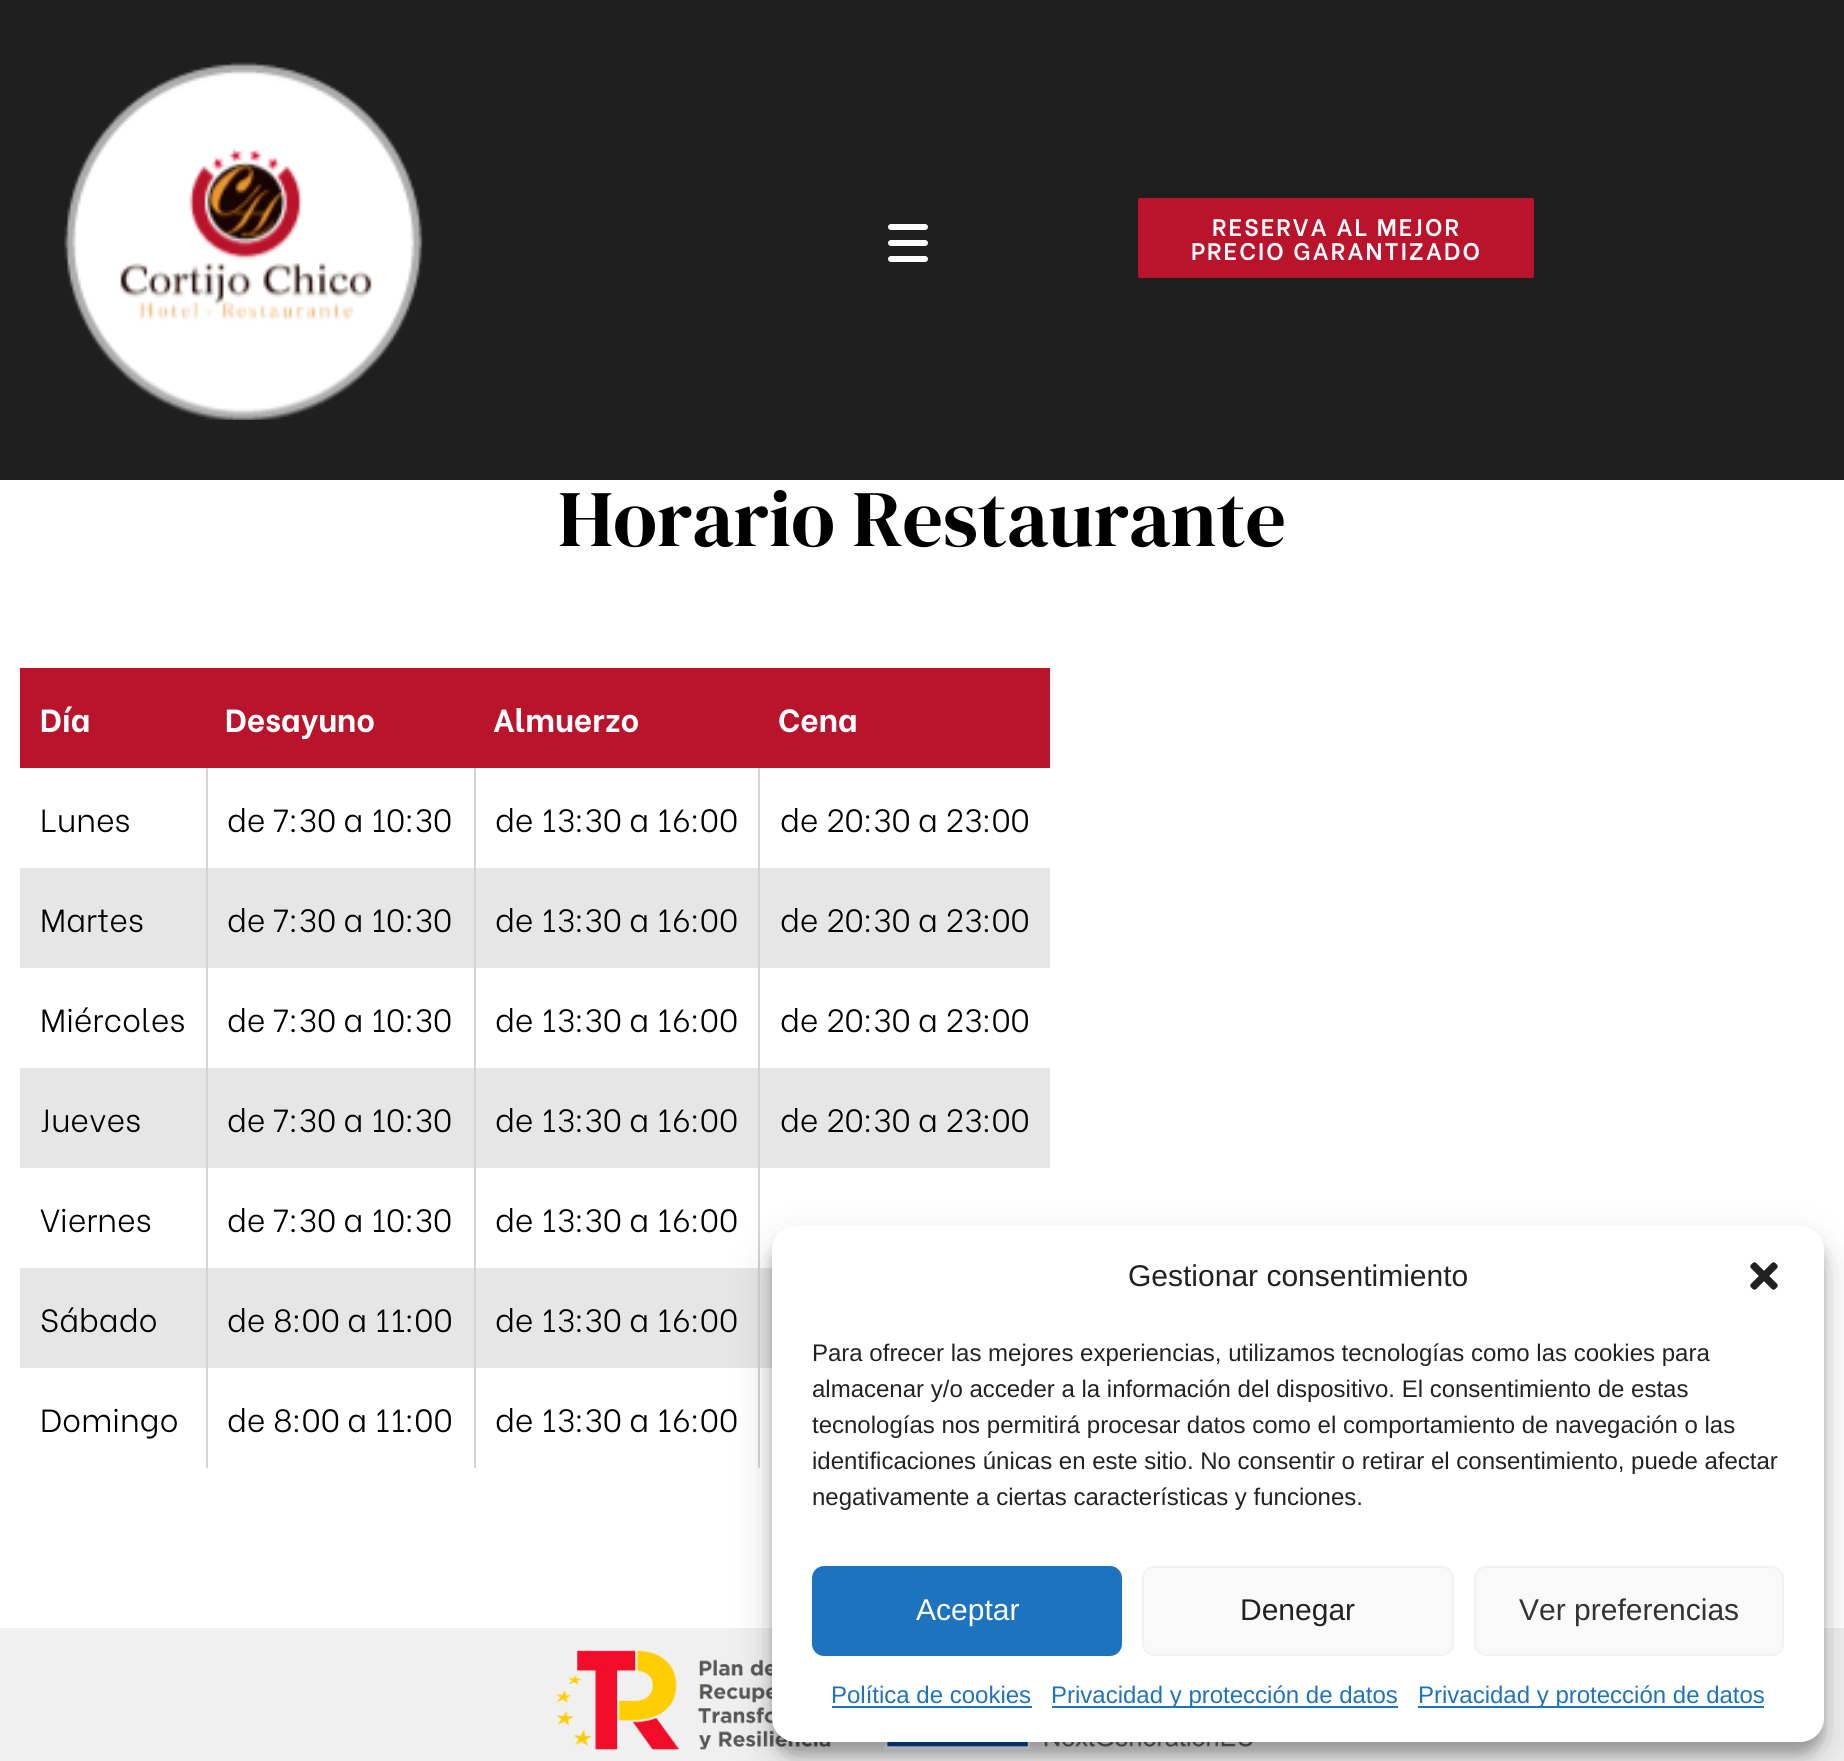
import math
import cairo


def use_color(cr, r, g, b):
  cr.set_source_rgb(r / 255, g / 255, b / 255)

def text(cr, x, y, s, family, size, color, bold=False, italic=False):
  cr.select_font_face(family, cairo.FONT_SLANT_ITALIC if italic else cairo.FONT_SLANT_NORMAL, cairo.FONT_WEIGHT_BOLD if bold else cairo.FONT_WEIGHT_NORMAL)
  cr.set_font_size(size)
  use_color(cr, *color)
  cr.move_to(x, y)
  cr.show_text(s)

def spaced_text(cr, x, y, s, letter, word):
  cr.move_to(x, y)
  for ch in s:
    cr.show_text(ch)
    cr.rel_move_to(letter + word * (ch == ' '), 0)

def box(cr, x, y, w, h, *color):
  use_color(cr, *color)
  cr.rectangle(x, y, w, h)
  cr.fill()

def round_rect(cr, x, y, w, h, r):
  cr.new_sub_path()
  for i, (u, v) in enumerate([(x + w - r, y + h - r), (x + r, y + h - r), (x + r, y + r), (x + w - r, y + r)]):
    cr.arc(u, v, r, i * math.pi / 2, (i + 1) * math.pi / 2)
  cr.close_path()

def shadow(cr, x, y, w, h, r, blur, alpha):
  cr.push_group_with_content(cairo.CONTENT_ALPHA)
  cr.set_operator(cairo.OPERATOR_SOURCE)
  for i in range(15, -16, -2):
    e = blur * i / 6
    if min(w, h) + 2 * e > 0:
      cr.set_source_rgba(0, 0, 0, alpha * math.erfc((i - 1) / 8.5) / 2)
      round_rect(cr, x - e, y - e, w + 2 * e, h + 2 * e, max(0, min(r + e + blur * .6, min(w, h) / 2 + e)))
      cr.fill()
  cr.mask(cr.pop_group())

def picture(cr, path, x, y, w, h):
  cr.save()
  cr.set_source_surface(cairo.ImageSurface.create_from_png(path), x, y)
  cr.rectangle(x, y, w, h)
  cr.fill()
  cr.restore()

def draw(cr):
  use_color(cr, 255, 255, 255)
  cr.paint()
  box(cr, 0, 0, 1844, 480, 31, 31, 31)
  picture(cr, "img_01.png", 64, 62, 359, 358)
  use_color(cr, 255, 255, 255)
  round_rect(cr, 888, 240, 40, 6, 3)
  cr.fill()
  round_rect(cr, 888, 224, 40, 6, 3)
  cr.fill()
  round_rect(cr, 888, 256, 40, 6, 3)
  cr.fill()
  use_color(cr, 186, 20, 44)
  round_rect(cr, 1139, 199, 394, 78, 1)
  cr.fill_preserve()
  cr.stroke()
  box(cr, 20, 668, 1030, 100, 186, 20, 44)
  box(cr, 206, 768, 2, 700, 214, 211, 211)
  box(cr, 474, 768, 2, 700, 214, 211, 211)
  box(cr, 758, 768, 2, 700, 214, 211, 211)
  box(cr, 20, 868, 186, 100, 230, 230, 230)
  box(cr, 208, 868, 266, 100, 230, 230, 230)
  box(cr, 476, 868, 282, 100, 230, 230, 230)
  box(cr, 760, 868, 290, 100, 230, 230, 230)
  box(cr, 20, 1068, 186, 100, 230, 230, 230)
  box(cr, 208, 1068, 266, 100, 230, 230, 230)
  box(cr, 476, 1068, 282, 100, 230, 230, 230)
  box(cr, 760, 1068, 290, 100, 230, 230, 230)
  box(cr, 20, 1268, 186, 100, 230, 230, 230)
  box(cr, 208, 1268, 266, 100, 230, 230, 230)
  box(cr, 476, 1268, 282, 100, 230, 230, 230)
  box(cr, 760, 1268, 12, 100, 230, 230, 230)
  box(cr, 0, 1628, 1844, 133, 240, 240, 240)
  picture(cr, "img_02.png", 556, 1650, 697, 100)
  use_color(cr, 0, 0, 0)
  shadow(cr, 772, 1238, 1052, 516, 24, 6, 0.23)
  shadow(cr, 772, 1246, 1052, 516, 24, 20, 0.19)
  use_color(cr, 255, 255, 255)
  round_rect(cr, 772, 1226, 1052, 516, 24)
  cr.fill()
  picture(cr, "img_03.png", 1750, 1262, 28, 28)
  use_color(cr, 30, 115, 190)
  round_rect(cr, 813, 1567, 308, 88, 11)
  cr.fill_preserve()
  cr.stroke()
  use_color(cr, 249, 249, 249)
  round_rect(cr, 1143, 1567, 310, 88, 11)
  cr.fill_preserve()
  use_color(cr, 242, 242, 242)
  cr.stroke()
  use_color(cr, 249, 249, 249)
  round_rect(cr, 1475, 1567, 308, 88, 11)
  cr.fill_preserve()
  use_color(cr, 242, 242, 242)
  cr.stroke()
  box(cr, 832, 1706, 200, 2, 30, 115, 190)
  box(cr, 1052, 1706, 346, 2, 30, 115, 190)
  box(cr, 1418, 1706, 346, 2, 30, 115, 190)
  cr.select_font_face("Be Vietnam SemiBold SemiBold")
  cr.set_font_size(24)
  use_color(cr, 255, 255, 255)
  spaced_text(cr, 1212, 236, "RESERVA AL MEJOR", 2, 0)
  spaced_text(cr, 1191, 260, "PRECIO GARANTIZADO", 2, 0)
  text(cr, 558, 546, "Horario Restaurante", "DM Serif Display", 80, (0, 0, 0))
  text(cr, 40, 732, "Día", "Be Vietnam", 32, (255, 255, 255), bold=True)
  text(cr, 225, 732, "Desayuno", "Be Vietnam", 32, (255, 255, 255), bold=True)
  text(cr, 493, 732, "Almuerzo", "Be Vietnam", 32, (255, 255, 255), bold=True)
  text(cr, 778, 732, "Cena", "Be Vietnam", 32, (255, 255, 255), bold=True)
  text(cr, 40, 832, "Lunes", "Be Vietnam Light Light", 32, (0, 0, 0))
  text(cr, 227, 832, "de 7:30 a 10:30", "Be Vietnam Light Light", 32, (0, 0, 0))
  text(cr, 495, 832, "de 13:30 a 16:00", "Be Vietnam Light Light", 32, (0, 0, 0))
  text(cr, 780, 832, "de 20:30 a 23:00", "Be Vietnam Light Light", 32, (0, 0, 0))
  text(cr, 40, 932, "Martes", "Be Vietnam Light Light", 32, (0, 0, 0))
  text(cr, 227, 932, "de 7:30 a 10:30", "Be Vietnam Light Light", 32, (0, 0, 0))
  text(cr, 495, 932, "de 13:30 a 16:00", "Be Vietnam Light Light", 32, (0, 0, 0))
  text(cr, 780, 932, "de 20:30 a 23:00", "Be Vietnam Light Light", 32, (0, 0, 0))
  text(cr, 40, 1032, "Miércoles", "Be Vietnam Light Light", 32, (0, 0, 0))
  text(cr, 227, 1032, "de 7:30 a 10:30", "Be Vietnam Light Light", 32, (0, 0, 0))
  text(cr, 495, 1032, "de 13:30 a 16:00", "Be Vietnam Light Light", 32, (0, 0, 0))
  text(cr, 780, 1032, "de 20:30 a 23:00", "Be Vietnam Light Light", 32, (0, 0, 0))
  text(cr, 40, 1132, "Jueves", "Be Vietnam Light Light", 32, (0, 0, 0))
  text(cr, 227, 1132, "de 7:30 a 10:30", "Be Vietnam Light Light", 32, (0, 0, 0))
  text(cr, 495, 1132, "de 13:30 a 16:00", "Be Vietnam Light Light", 32, (0, 0, 0))
  text(cr, 780, 1132, "de 20:30 a 23:00", "Be Vietnam Light Light", 32, (0, 0, 0))
  text(cr, 40, 1232, "Viernes", "Be Vietnam Light Light", 32, (0, 0, 0))
  text(cr, 227, 1232, "de 7:30 a 10:30", "Be Vietnam Light Light", 32, (0, 0, 0))
  text(cr, 495, 1232, "de 13:30 a 16:00", "Be Vietnam Light Light", 32, (0, 0, 0))
  text(cr, 40, 1332, "Sábado", "Be Vietnam Light Light", 32, (0, 0, 0))
  text(cr, 227, 1332, "de 8:00 a 11:00", "Be Vietnam Light Light", 32, (0, 0, 0))
  text(cr, 495, 1332, "de 13:30 a 16:00", "Be Vietnam Light Light", 32, (0, 0, 0))
  text(cr, 40, 1432, "Domingo", "Be Vietnam Light Light", 32, (0, 0, 0))
  text(cr, 227, 1432, "de 8:00 a 11:00", "Be Vietnam Light Light", 32, (0, 0, 0))
  text(cr, 495, 1432, "de 13:30 a 16:00", "Be Vietnam Light Light", 32, (0, 0, 0))
  text(cr, 1128, 1286, "Gestionar consentimiento", "Liberation Sans", 30, (34, 34, 34))
  text(cr, 812, 1361, "Para ofrecer las mejores experiencias, utilizamos tecnologías como las cookies para", "Liberation Sans", 24, (34, 34, 34))
  text(cr, 812, 1397, "almacenar y/o acceder a la información del dispositivo. El consentimiento de estas", "Liberation Sans", 24, (34, 34, 34))
  text(cr, 812, 1433, "tecnologías nos permitirá procesar datos como el comportamiento de navegación o las", "Liberation Sans", 24, (34, 34, 34))
  text(cr, 812, 1469, "identificaciones únicas en este sitio. No consentir o retirar el consentimiento, puede afectar", "Liberation Sans", 24, (34, 34, 34))
  text(cr, 812, 1505, "negativamente a ciertas características y funciones.", "Liberation Sans", 24, (34, 34, 34))
  text(cr, 916, 1620, "Aceptar", "Liberation Sans", 30, (255, 255, 255))
  text(cr, 1240, 1620, "Denegar", "Liberation Sans", 30, (34, 34, 34))
  text(cr, 1519, 1620, "Ver preferencias", "Liberation Sans", 30, (51, 51, 51))
  text(cr, 831, 1703, "Política de cookies", "Liberation Sans", 24, (30, 115, 190))
  text(cr, 1051, 1703, "Privacidad y protección de datos", "Liberation Sans", 24, (30, 115, 190))
  text(cr, 1418, 1703, "Privacidad y protección de datos", "Liberation Sans", 24, (30, 115, 190))


surface = cairo.ImageSurface(cairo.FORMAT_RGB24, 1844, 1761)
cr = cairo.Context(surface)
options = cairo.FontOptions()
options.set_hint_metrics(cairo.HINT_METRICS_OFF)
options.set_hint_style(cairo.HINT_STYLE_NONE)
cr.set_font_options(options)
cr.set_miter_limit(4)
draw(cr)
surface.write_to_png("out.png")
